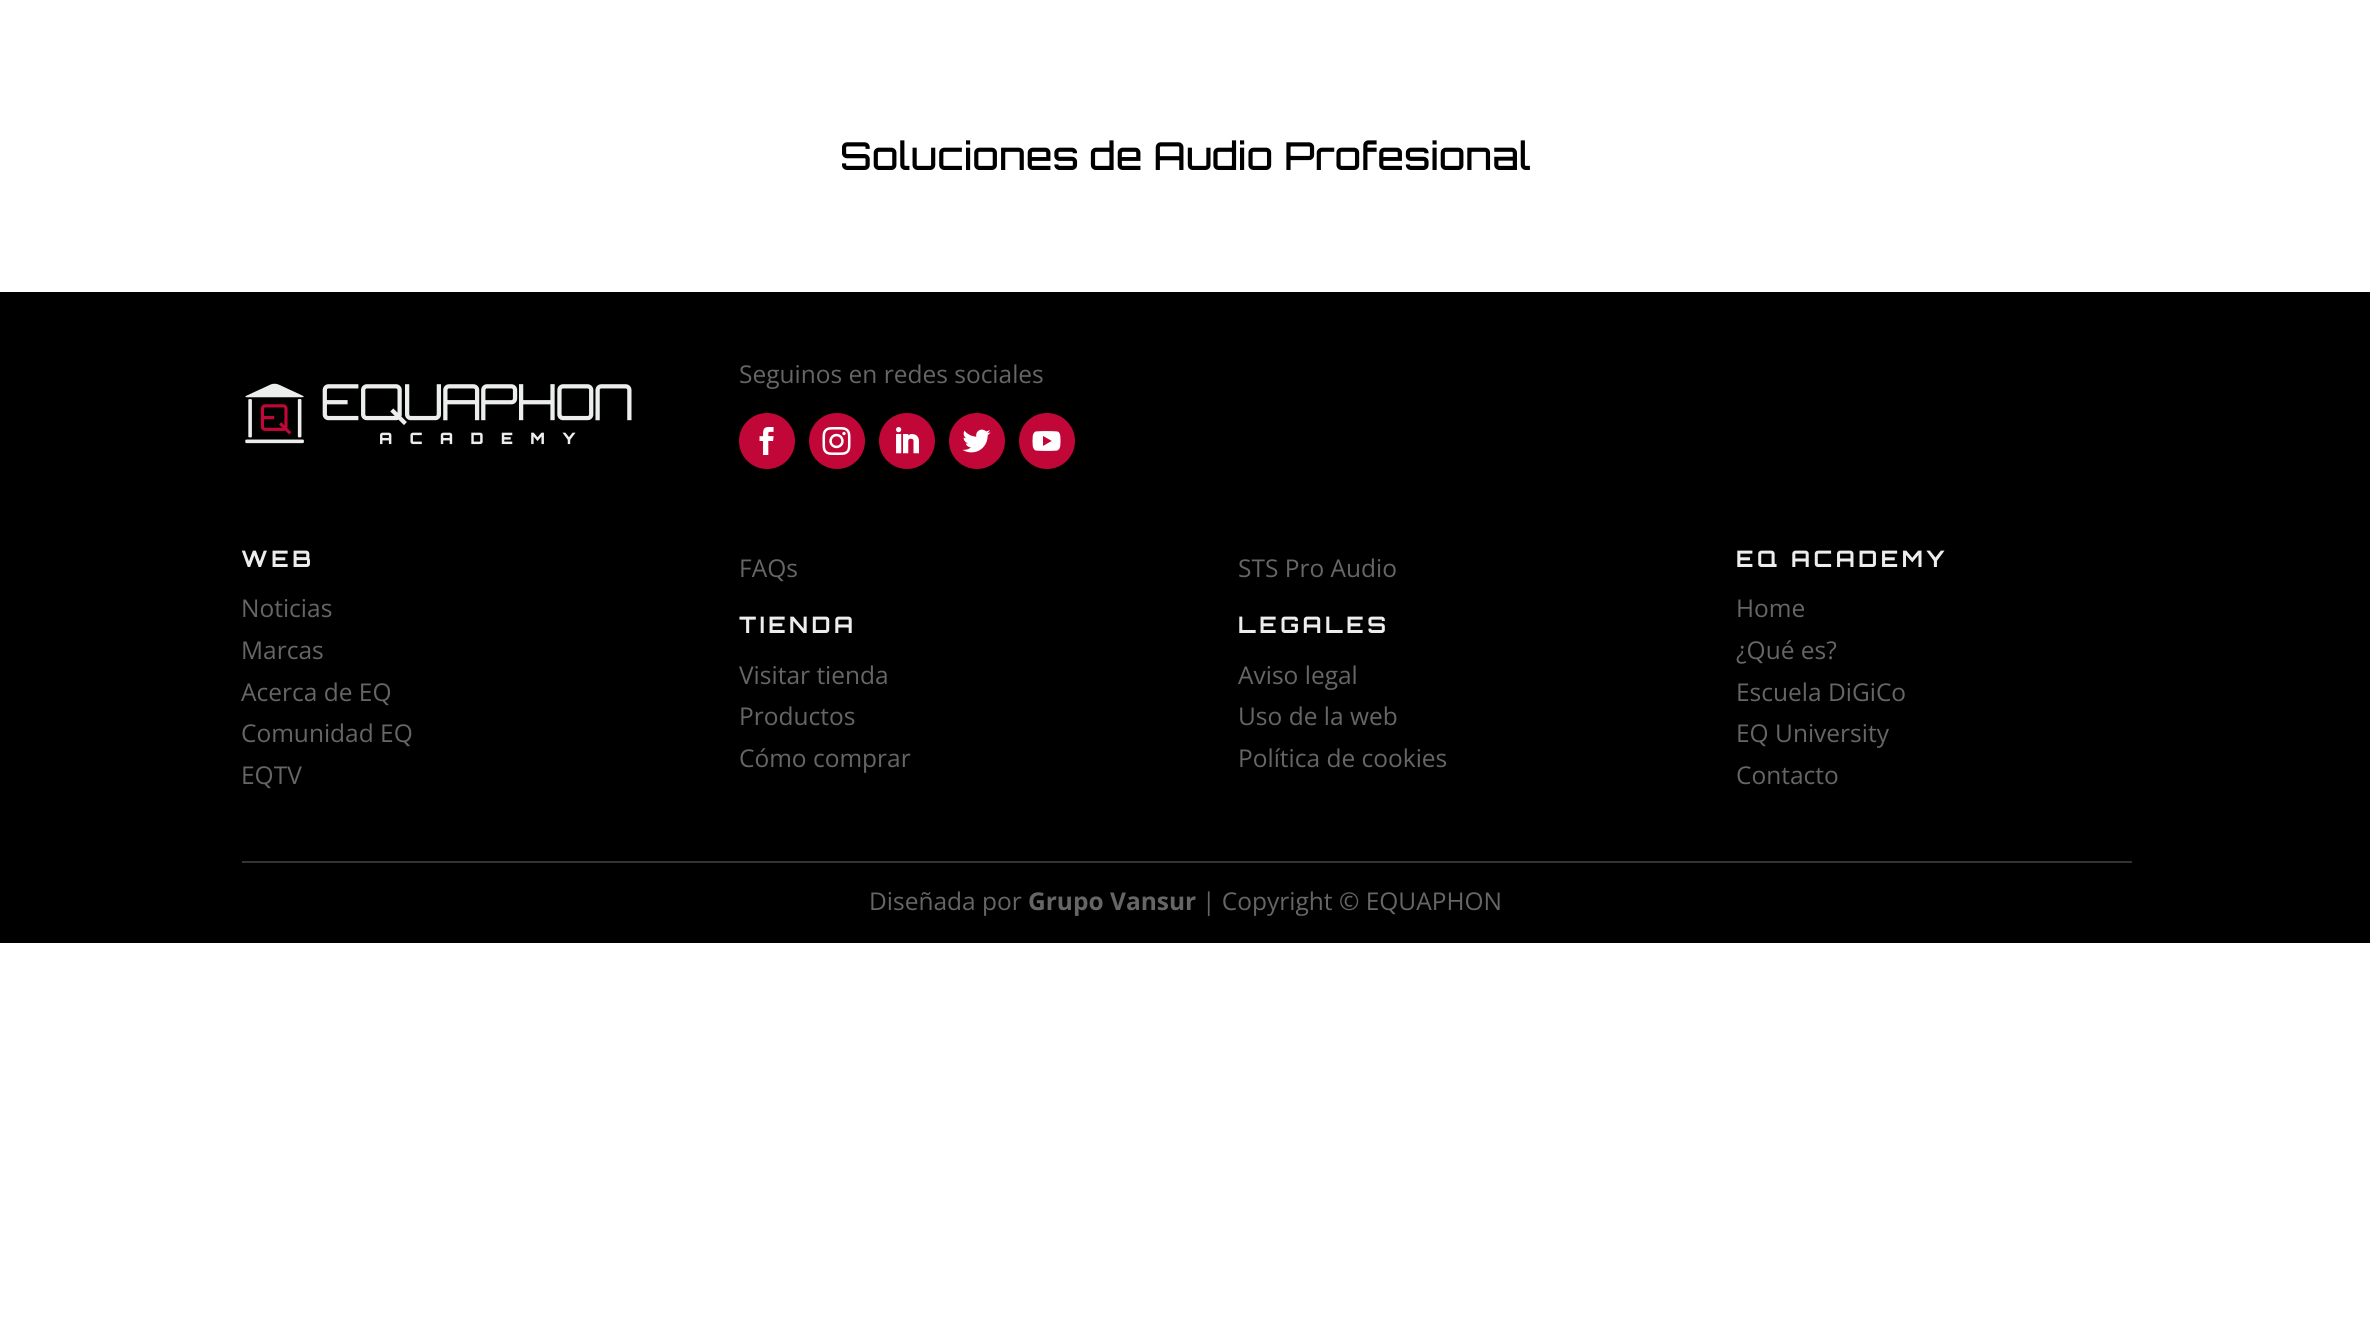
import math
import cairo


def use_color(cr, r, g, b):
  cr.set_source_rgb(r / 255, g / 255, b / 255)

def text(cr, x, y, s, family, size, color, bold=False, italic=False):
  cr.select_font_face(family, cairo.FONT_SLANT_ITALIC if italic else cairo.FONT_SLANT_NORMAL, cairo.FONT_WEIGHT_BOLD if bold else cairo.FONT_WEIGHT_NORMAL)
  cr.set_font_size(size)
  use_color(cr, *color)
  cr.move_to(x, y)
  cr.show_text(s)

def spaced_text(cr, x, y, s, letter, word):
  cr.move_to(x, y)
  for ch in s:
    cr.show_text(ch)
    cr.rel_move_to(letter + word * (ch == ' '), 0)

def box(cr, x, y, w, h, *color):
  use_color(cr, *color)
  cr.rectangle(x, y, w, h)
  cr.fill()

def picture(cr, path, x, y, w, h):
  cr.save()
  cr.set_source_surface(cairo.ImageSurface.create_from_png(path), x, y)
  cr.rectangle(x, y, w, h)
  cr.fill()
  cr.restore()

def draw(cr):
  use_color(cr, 255, 255, 255)
  cr.paint()
  box(cr, 0, 292, 2370, 651, 0, 0, 0)
  use_color(cr, 193, 7, 55)
  cr.arc(767, 441, 28, 0, 2 * math.pi)
  cr.fill()
  picture(cr, "img_01.png", 759, 427, 15, 28)
  cr.arc(837, 441, 28, 0, 2 * math.pi)
  cr.fill()
  picture(cr, "img_02.png", 822, 427, 29, 28)
  cr.arc(907, 441, 28, 0, 2 * math.pi)
  cr.fill()
  picture(cr, "img_03.png", 896, 427, 23, 27)
  cr.arc(977, 441, 28, 0, 2 * math.pi)
  cr.fill()
  picture(cr, "img_04.png", 962, 429, 29, 24)
  cr.arc(1047, 441, 28, 0, 2 * math.pi)
  cr.fill()
  picture(cr, "img_05.png", 1032, 431, 29, 20)
  picture(cr, "img_06.png", 245, 383, 387, 62)
  box(cr, 242, 861, 1890, 2, 51, 51, 51)
  text(cr, 840, 170, "Soluciones de Audio Profesional", "Orbitron Medium", 38.5, (0, 0, 0))
  text(cr, 739, 383, "Seguinos en redes sociales", "Open Sans", 24.5, (102, 102, 102))
  cr.select_font_face("Orbitron", cairo.FONT_SLANT_NORMAL, cairo.FONT_WEIGHT_BOLD)
  cr.set_font_size(22.75)
  use_color(cr, 236, 237, 237)
  spaced_text(cr, 241, 567, "WEB", 3.5, 0)
  text(cr, 241, 617, "Noticias", "Open Sans", 24.5, (102, 102, 102))
  text(cr, 241, 659, "Marcas", "Open Sans", 24.5, (102, 102, 102))
  text(cr, 241, 701, "Acerca de EQ", "Open Sans", 24.5, (102, 102, 102))
  text(cr, 241, 742, "Comunidad EQ", "Open Sans", 24.5, (102, 102, 102))
  text(cr, 241, 784, "EQTV", "Open Sans", 24.5, (102, 102, 102))
  text(cr, 739, 577, "FAQs", "Open Sans", 24.5, (102, 102, 102))
  cr.select_font_face("Orbitron", cairo.FONT_SLANT_NORMAL, cairo.FONT_WEIGHT_BOLD)
  cr.set_font_size(22.75)
  use_color(cr, 236, 237, 237)
  spaced_text(cr, 739, 633, "TIENDA", 3.5, 0)
  text(cr, 739, 684, "Visitar tienda", "Open Sans", 24.5, (102, 102, 102))
  text(cr, 739, 725, "Productos", "Open Sans", 24.5, (102, 102, 102))
  text(cr, 739, 767, "Cómo comprar", "Open Sans", 24.5, (102, 102, 102))
  text(cr, 1238, 577, "STS Pro Audio", "Open Sans", 24.5, (102, 102, 102))
  cr.select_font_face("Orbitron", cairo.FONT_SLANT_NORMAL, cairo.FONT_WEIGHT_BOLD)
  cr.set_font_size(22.75)
  use_color(cr, 236, 237, 237)
  spaced_text(cr, 1238, 633, "LEGALES", 3.5, 0)
  text(cr, 1238, 684, "Aviso legal", "Open Sans", 24.5, (102, 102, 102))
  text(cr, 1238, 725, "Uso de la web", "Open Sans", 24.5, (102, 102, 102))
  text(cr, 1238, 767, "Política de cookies", "Open Sans", 24.5, (102, 102, 102))
  cr.select_font_face("Orbitron", cairo.FONT_SLANT_NORMAL, cairo.FONT_WEIGHT_BOLD)
  cr.set_font_size(22.75)
  use_color(cr, 236, 237, 237)
  spaced_text(cr, 1736, 567, "EQ ACADEMY", 3.5, 0)
  text(cr, 1736, 617, "Home", "Open Sans", 24.5, (102, 102, 102))
  text(cr, 1736, 659, "¿Qué es?", "Open Sans", 24.5, (102, 102, 102))
  text(cr, 1736, 701, "Escuela DiGiCo", "Open Sans", 24.5, (102, 102, 102))
  text(cr, 1736, 742, "EQ University", "Open Sans", 24.5, (102, 102, 102))
  text(cr, 1736, 784, "Contacto", "Open Sans", 24.5, (102, 102, 102))
  text(cr, 869, 910, "Diseñada por", "Open Sans", 24.5, (102, 102, 102))
  text(cr, 1028, 910, "Grupo Vansur", "Open Sans", 24.5, (102, 102, 102), bold=True)
  text(cr, 1202, 910, "| Copyright © EQUAPHON", "Open Sans", 24.5, (102, 102, 102))


surface = cairo.ImageSurface(cairo.FORMAT_RGB24, 2370, 1329)
cr = cairo.Context(surface)
options = cairo.FontOptions()
options.set_hint_metrics(cairo.HINT_METRICS_OFF)
options.set_hint_style(cairo.HINT_STYLE_NONE)
cr.set_font_options(options)
cr.set_miter_limit(4)
draw(cr)
surface.write_to_png("out.png")
